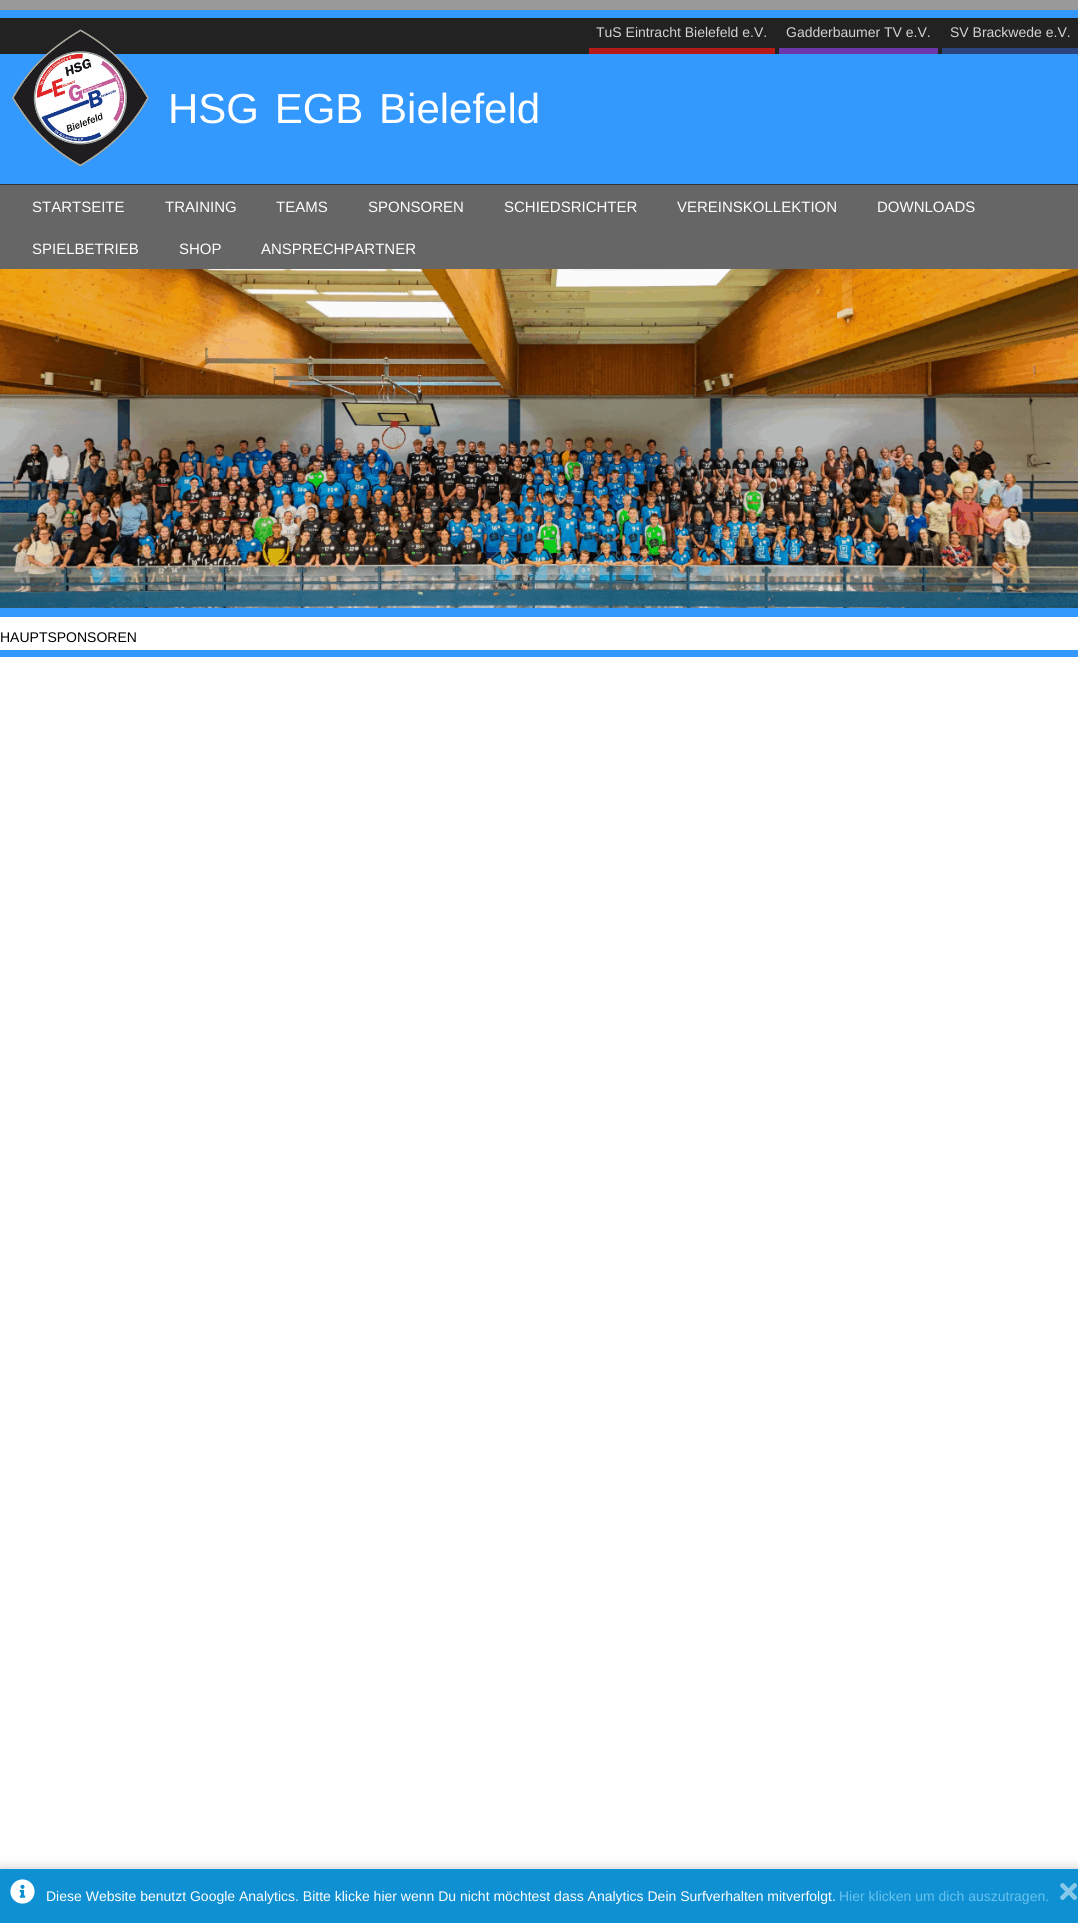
import math
import cairo


def use_color(cr, r, g, b):
  cr.set_source_rgb(r / 255, g / 255, b / 255)

def text(cr, x, y, s, family, size, color, bold=False, italic=False):
  cr.select_font_face(family, cairo.FONT_SLANT_ITALIC if italic else cairo.FONT_SLANT_NORMAL, cairo.FONT_WEIGHT_BOLD if bold else cairo.FONT_WEIGHT_NORMAL)
  cr.set_font_size(size)
  use_color(cr, *color)
  cr.move_to(x, y)
  cr.show_text(s)

def spaced_text(cr, x, y, s, letter, word):
  cr.move_to(x, y)
  for ch in s:
    cr.show_text(ch)
    cr.rel_move_to(letter + word * (ch == ' '), 0)

def box(cr, x, y, w, h, *color):
  use_color(cr, *color)
  cr.rectangle(x, y, w, h)
  cr.fill()

def round_rect(cr, x, y, w, h, r):
  cr.new_sub_path()
  for i, (u, v) in enumerate([(x + w - r, y + h - r), (x + r, y + h - r), (x + r, y + r), (x + w - r, y + r)]):
    cr.arc(u, v, r, i * math.pi / 2, (i + 1) * math.pi / 2)
  cr.close_path()

def shadow(cr, x, y, w, h, r, blur, alpha):
  cr.push_group_with_content(cairo.CONTENT_ALPHA)
  cr.set_operator(cairo.OPERATOR_SOURCE)
  for i in range(15, -16, -2):
    e = blur * i / 6
    if min(w, h) + 2 * e > 0:
      cr.set_source_rgba(0, 0, 0, alpha * math.erfc((i - 1) / 8.5) / 2)
      round_rect(cr, x - e, y - e, w + 2 * e, h + 2 * e, max(0, min(r + e + blur * .6, min(w, h) / 2 + e)))
      cr.fill()
  cr.mask(cr.pop_group())

def picture(cr, path, x, y, w, h):
  cr.save()
  cr.set_source_surface(cairo.ImageSurface.create_from_png(path), x, y)
  cr.rectangle(x, y, w, h)
  cr.fill()
  cr.restore()

def draw(cr):
  use_color(cr, 153, 153, 153)
  cr.paint()
  box(cr, 0, 10, 1078, 8, 51, 153, 254)
  box(cr, 0, 54, 1078, 563, 51, 153, 254)
  box(cr, 0, 18, 1078, 36, 34, 34, 34)
  picture(cr, "img_01.png", 11, 29, 138, 138)
  box(cr, 589, 48, 186, 6, 184, 26, 26)
  box(cr, 779, 48, 159, 6, 108, 53, 168)
  box(cr, 942, 48, 136, 6, 44, 69, 127)
  box(cr, 0, 185, 1078, 84, 102, 102, 102)
  box(cr, 0, 184, 1078, 1, 51, 51, 51)
  picture(cr, "img_02.png", 0, 269, 1078, 339)
  box(cr, 0, 617, 1078, 1252, 255, 255, 255)
  box(cr, 0, 650, 1078, 7, 51, 153, 254)
  use_color(cr, 0, 0, 0)
  shadow(cr, 0, 1873, 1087, 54, 0, 7.5, 0.4)
  box(cr, 0, 1869, 1078, 54, 14, 144, 210)
  picture(cr, "img_03.png", 10, 1879, 25, 25)
  picture(cr, "img_04.png", 1060, 1882, 17, 18)
  cr.select_font_face("Liberation Sans")
  cr.set_font_size(42)
  use_color(cr, 255, 255, 255)
  spaced_text(cr, 168, 123, "HSG EGB Bielefeld", 0, 4)
  text(cr, 596, 37, "TuS Eintracht Bielefeld e.V.", "Liberation Sans", 14, (211, 211, 211))
  text(cr, 786, 37, "Gadderbaumer TV e.V.", "Liberation Sans", 14, (211, 211, 211))
  text(cr, 950, 37, "SV Brackwede e.V.", "Liberation Sans", 14, (211, 211, 211))
  text(cr, 32, 212, "STARTSEITE", "Liberation Sans", 15, (255, 255, 255))
  text(cr, 165, 212, "TRAINING", "Liberation Sans", 15, (255, 255, 255))
  text(cr, 276, 212, "TEAMS", "Liberation Sans", 15, (255, 255, 255))
  text(cr, 368, 212, "SPONSOREN", "Liberation Sans", 15, (255, 255, 255))
  text(cr, 504, 212, "SCHIEDSRICHTER", "Liberation Sans", 15, (255, 255, 255))
  text(cr, 677, 212, "VEREINSKOLLEKTION", "Liberation Sans", 15, (255, 255, 255))
  text(cr, 877, 212, "DOWNLOADS", "Liberation Sans", 15, (255, 255, 255))
  text(cr, 32, 254, "SPIELBETRIEB", "Liberation Sans", 15, (255, 255, 255))
  text(cr, 179, 254, "SHOP", "Liberation Sans", 15, (255, 255, 255))
  text(cr, 261, 254, "ANSPRECHPARTNER", "Liberation Sans", 15, (255, 255, 255))
  text(cr, 0, 642, "HAUPTSPONSOREN", "Liberation Sans", 14, (0, 0, 0))
  text(cr, 46, 1901, "Diese Website benutzt Google Analytics. Bitte klicke hier wenn Du nicht möchtest dass Analytics Dein Surfverhalten mitverfolgt.", "Liberation Sans", 14, (255, 255, 255))
  text(cr, 839, 1901, "Hier klicken um dich auszutragen.", "Liberation Sans", 14, (103, 194, 240))


surface = cairo.ImageSurface(cairo.FORMAT_RGB24, 1078, 1923)
cr = cairo.Context(surface)
options = cairo.FontOptions()
options.set_hint_metrics(cairo.HINT_METRICS_OFF)
options.set_hint_style(cairo.HINT_STYLE_NONE)
cr.set_font_options(options)
cr.set_miter_limit(4)
draw(cr)
surface.write_to_png("out.png")
